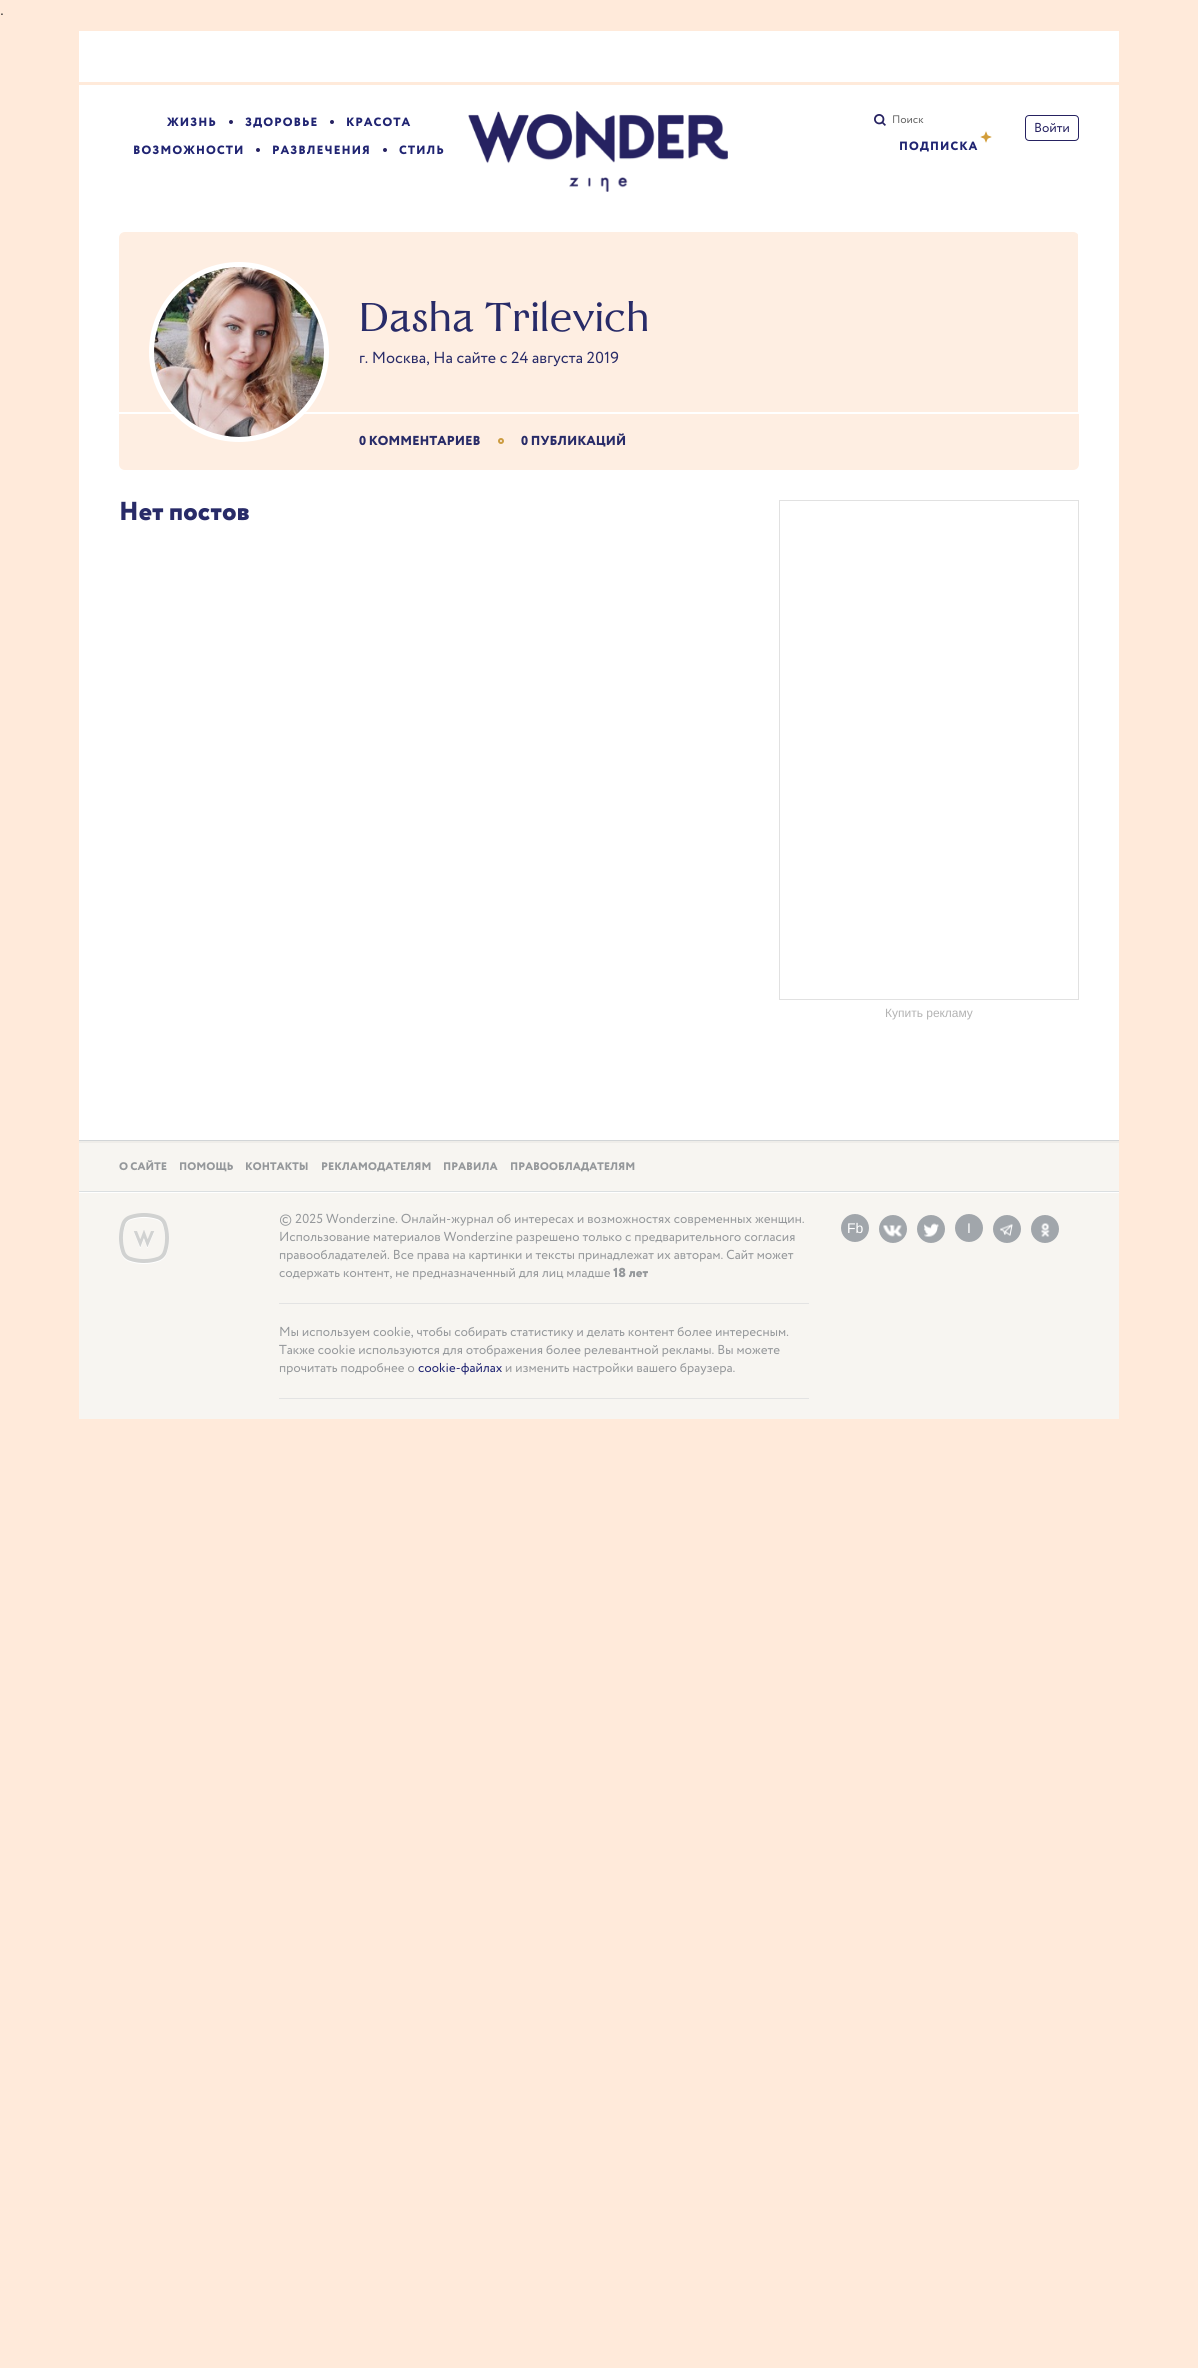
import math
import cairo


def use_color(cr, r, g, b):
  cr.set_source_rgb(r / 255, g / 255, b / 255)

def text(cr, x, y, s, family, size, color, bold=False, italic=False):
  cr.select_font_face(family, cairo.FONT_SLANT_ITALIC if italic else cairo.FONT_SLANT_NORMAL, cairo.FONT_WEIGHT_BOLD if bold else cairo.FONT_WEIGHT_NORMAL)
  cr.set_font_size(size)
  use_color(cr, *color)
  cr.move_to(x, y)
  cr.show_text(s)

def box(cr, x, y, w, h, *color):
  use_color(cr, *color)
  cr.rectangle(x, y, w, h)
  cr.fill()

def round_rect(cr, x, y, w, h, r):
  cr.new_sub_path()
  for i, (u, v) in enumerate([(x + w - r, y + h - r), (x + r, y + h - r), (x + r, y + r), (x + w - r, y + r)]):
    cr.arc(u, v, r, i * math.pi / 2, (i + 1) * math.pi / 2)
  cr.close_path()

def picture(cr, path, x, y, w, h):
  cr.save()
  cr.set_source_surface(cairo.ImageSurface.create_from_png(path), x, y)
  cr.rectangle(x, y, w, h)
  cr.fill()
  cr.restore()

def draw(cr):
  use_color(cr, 255, 234, 218)
  cr.paint()
  box(cr, 79, 31, 1040, 51, 255, 255, 255)
  box(cr, 79, 85, 1040, 117, 255, 255, 255)
  picture(cr, "img_01.png", 167, 117, 49, 10)
  use_color(cr, 38, 34, 97)
  cr.arc(231, 122, 2, 0, 2 * math.pi)
  cr.fill()
  picture(cr, "img_02.png", 245, 117, 72, 11)
  cr.arc(332, 122, 2, 0, 2 * math.pi)
  cr.fill()
  picture(cr, "img_03.png", 347, 117, 64, 10)
  picture(cr, "img_04.png", 134, 145, 109, 10)
  cr.arc(258, 150, 2, 0, 2 * math.pi)
  cr.fill()
  picture(cr, "img_05.png", 273, 145, 96, 10)
  cr.arc(385, 150, 2, 0, 2 * math.pi)
  cr.fill()
  picture(cr, "img_06.png", 399, 145, 45, 10)
  picture(cr, "img_07.png", 468, 111, 260, 53)
  picture(cr, "img_08.png", 569, 177, 59, 15)
  picture(cr, "img_09.png", 874, 114, 12, 12)
  picture(cr, "img_10.png", 893, 115, 31, 9)
  round_rect(cr, 1025.5, 115.5, 53, 25, 3.5)
  cr.set_line_width(1)
  cr.stroke()
  picture(cr, "img_11.png", 1035, 122, 34, 11)
  picture(cr, "img_12.png", 980, 131, 12, 12)
  picture(cr, "img_13.png", 900, 141, 78, 11)
  box(cr, 79, 202, 999, 268, 255, 255, 255)
  use_color(cr, 254, 238, 226)
  cr.new_path()
  cr.move_to(125, 232)
  cr.line_to(1073, 232)
  cr.curve_to(1076.5, 232, 1079, 234.5, 1079, 238)
  cr.line_to(1079, 412)
  cr.line_to(119, 412)
  cr.line_to(119, 238)
  cr.curve_to(119, 234.5, 121.5, 232, 125, 232)
  cr.close_path()
  cr.fill()
  box(cr, 1078, 202, 41, 268, 255, 255, 255)
  use_color(cr, 254, 238, 226)
  cr.new_path()
  cr.move_to(119, 412)
  cr.line_to(1079, 412)
  cr.line_to(1079, 464)
  cr.curve_to(1079, 467.5, 1076.5, 470, 1073, 470)
  cr.line_to(125, 470)
  cr.curve_to(121.5, 470, 119, 467.5, 119, 464)
  cr.close_path()
  cr.fill()
  box(cr, 119, 412, 960, 2, 255, 255, 255)
  cr.arc(239, 352, 87.5, 0, 2 * math.pi)
  cr.fill_preserve()
  cr.set_line_width(5)
  cr.stroke()
  picture(cr, "img_14.png", 154, 267, 170, 170)
  picture(cr, "img_15.png", 360, 351, 259, 16)
  picture(cr, "img_16.png", 359, 435, 121, 11)
  picture(cr, "img_17.png", 498, 438, 6, 6)
  picture(cr, "img_18.png", 521, 433, 105, 14)
  box(cr, 79, 470, 1040, 670, 255, 255, 255)
  picture(cr, "img_19.png", 121, 501, 128, 20)
  cr.rectangle(779.5, 500.5, 299, 499)
  use_color(cr, 225, 225, 225)
  cr.set_line_width(1)
  cr.stroke()
  box(cr, 79, 1141, 1040, 70, 247, 245, 241)
  picture(cr, "img_20.png", 120, 1140, 958, 53)
  picture(cr, "img_21.png", 79, 1140, 41, 53)
  picture(cr, "img_22.png", 119, 1160, 48, 11)
  picture(cr, "img_23.png", 180, 1162, 53, 10)
  picture(cr, "img_24.png", 246, 1162, 62, 9)
  picture(cr, "img_25.png", 322, 1162, 109, 10)
  picture(cr, "img_26.png", 444, 1162, 54, 8)
  picture(cr, "img_27.png", 511, 1162, 124, 10)
  picture(cr, "img_21.png", 1078, 1140, 41, 53)
  box(cr, 79, 1211, 1040, 208, 247, 245, 241)
  picture(cr, "img_28.png", 119, 1213, 50, 51)
  picture(cr, "img_29.png", 280, 1213, 43, 13)
  picture(cr, "img_30.png", 326, 1213, 478, 13)
  picture(cr, "img_31.png", 280, 1231, 515, 13)
  picture(cr, "img_32.png", 279, 1249, 515, 13)
  picture(cr, "img_33.png", 279, 1268, 331, 12)
  picture(cr, "img_34.png", 613, 1267, 35, 11)
  use_color(cr, 161, 166, 171)
  cr.arc(855, 1228, 14, 0, 2 * math.pi)
  cr.fill()
  cr.arc(893, 1229, 14, 0, 2 * math.pi)
  cr.fill()
  picture(cr, "img_35.png", 883, 1225, 19, 12)
  cr.arc(931, 1229, 14, 0, 2 * math.pi)
  cr.fill()
  picture(cr, "img_36.png", 924, 1223, 15, 14)
  cr.arc(969, 1228, 14, 0, 2 * math.pi)
  cr.fill()
  cr.arc(1007, 1229, 14, 0, 2 * math.pi)
  cr.fill()
  picture(cr, "img_37.png", 1000, 1224, 13, 12)
  cr.arc(1045, 1229, 14, 0, 2 * math.pi)
  cr.fill()
  picture(cr, "img_38.png", 1041, 1223, 9, 14)
  box(cr, 279, 1303, 530, 1, 227, 227, 227)
  picture(cr, "img_39.png", 280, 1326, 509, 13)
  picture(cr, "img_40.png", 279, 1344, 501, 13)
  picture(cr, "img_41.png", 279, 1363, 136, 12)
  picture(cr, "img_42.png", 418, 1362, 84, 13)
  picture(cr, "img_43.png", 505, 1362, 230, 13)
  box(cr, 279, 1398, 530, 1, 227, 227, 227)
  text(cr, 0, 15, ".", "Liberation Sans", 14, (38, 38, 38))
  text(cr, 359, 331, "Dasha Trilevich", "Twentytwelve", 40, (40, 43, 104))
  text(cr, 885, 1017, "Купить рекламу", "Liberation Sans", 12, (179, 179, 179))
  text(cr, 847, 1233, "Fb", "Liberation Sans", 14, (255, 255, 255))
  text(cr, 967, 1233, "I", "Liberation Sans", 14, (255, 255, 255))


surface = cairo.ImageSurface(cairo.FORMAT_RGB24, 1198, 2368)
cr = cairo.Context(surface)
options = cairo.FontOptions()
options.set_hint_metrics(cairo.HINT_METRICS_OFF)
options.set_hint_style(cairo.HINT_STYLE_NONE)
cr.set_font_options(options)
cr.set_miter_limit(4)
draw(cr)
surface.write_to_png("out.png")
